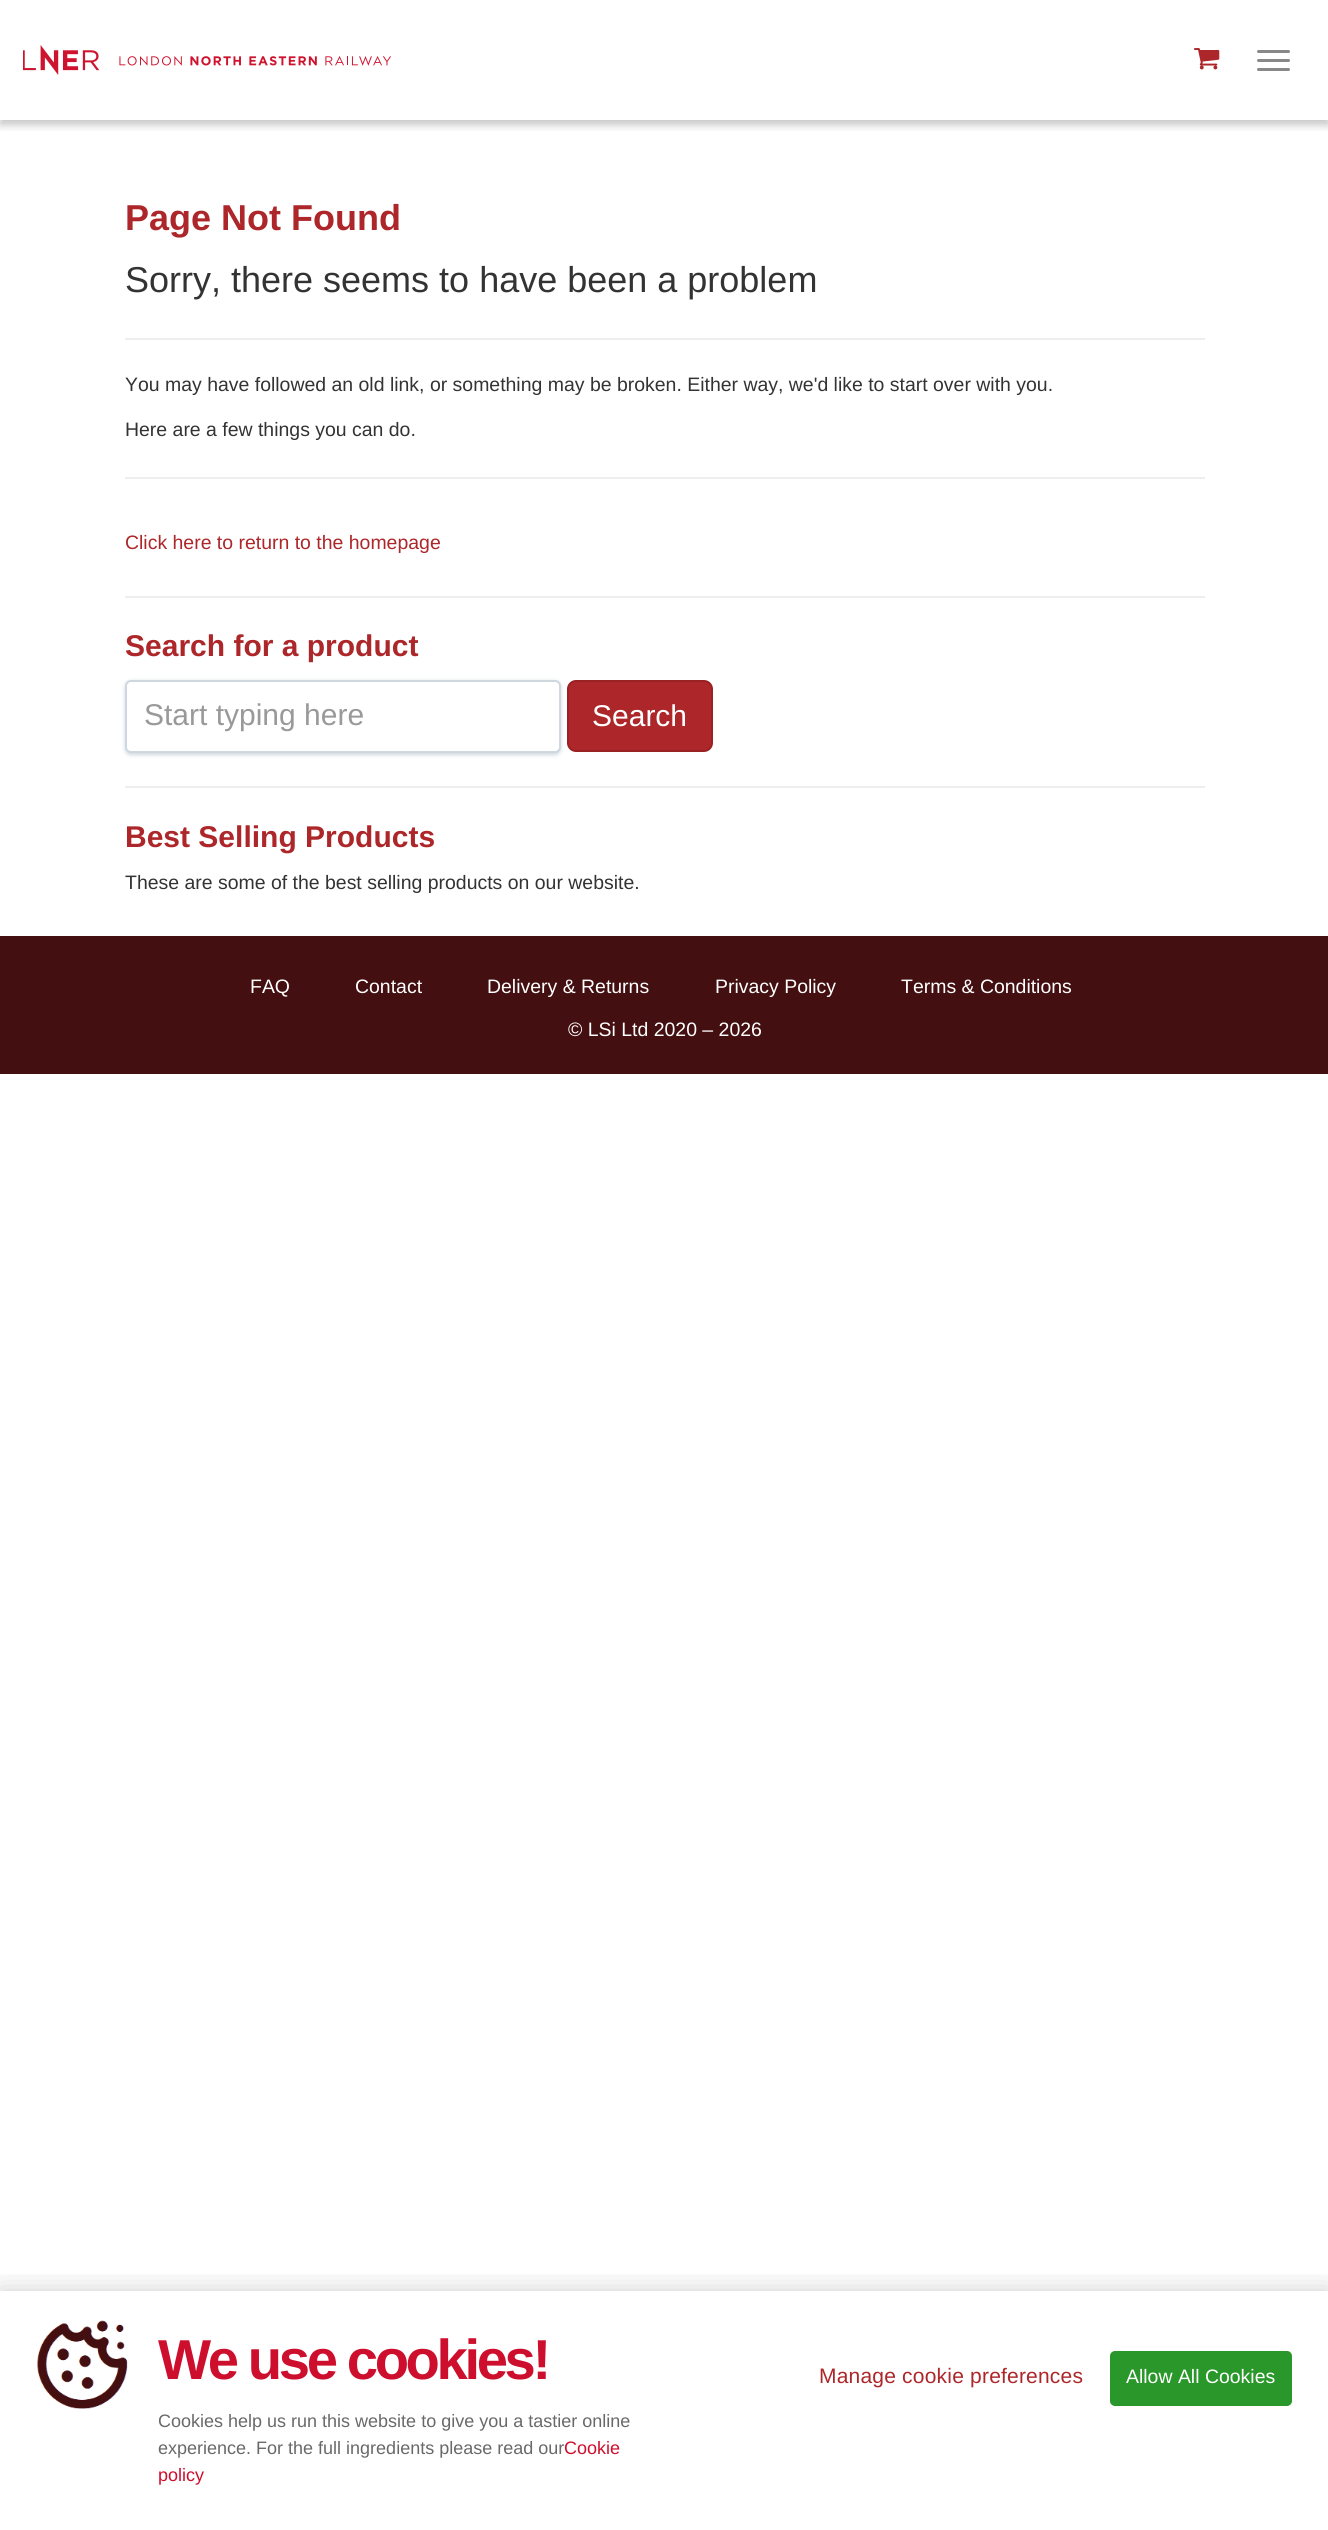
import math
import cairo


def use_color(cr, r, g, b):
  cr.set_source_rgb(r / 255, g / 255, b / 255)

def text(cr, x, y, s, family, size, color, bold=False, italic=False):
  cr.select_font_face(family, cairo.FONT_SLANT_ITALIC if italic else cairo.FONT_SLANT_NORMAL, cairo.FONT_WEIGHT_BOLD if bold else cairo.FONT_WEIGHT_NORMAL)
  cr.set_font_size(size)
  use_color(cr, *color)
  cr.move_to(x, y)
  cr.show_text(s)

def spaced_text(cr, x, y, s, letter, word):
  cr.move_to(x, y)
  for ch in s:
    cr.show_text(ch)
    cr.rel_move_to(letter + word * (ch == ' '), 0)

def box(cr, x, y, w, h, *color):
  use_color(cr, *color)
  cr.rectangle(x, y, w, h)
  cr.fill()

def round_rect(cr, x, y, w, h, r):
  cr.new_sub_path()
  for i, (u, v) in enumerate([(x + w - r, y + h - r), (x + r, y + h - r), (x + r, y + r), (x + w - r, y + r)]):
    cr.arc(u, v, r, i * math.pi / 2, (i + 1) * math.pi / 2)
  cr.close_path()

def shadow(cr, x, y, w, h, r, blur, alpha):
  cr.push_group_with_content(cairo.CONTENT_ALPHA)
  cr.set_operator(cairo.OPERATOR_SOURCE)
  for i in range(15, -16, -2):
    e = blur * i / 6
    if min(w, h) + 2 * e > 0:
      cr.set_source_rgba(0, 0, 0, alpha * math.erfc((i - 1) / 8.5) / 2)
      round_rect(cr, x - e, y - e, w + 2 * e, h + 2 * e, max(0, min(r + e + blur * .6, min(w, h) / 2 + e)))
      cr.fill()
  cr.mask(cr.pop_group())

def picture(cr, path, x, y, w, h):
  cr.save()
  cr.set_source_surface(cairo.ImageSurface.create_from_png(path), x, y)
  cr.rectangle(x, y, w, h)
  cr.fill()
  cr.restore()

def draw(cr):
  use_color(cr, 255, 255, 255)
  cr.paint()
  cr.save()
  cr.rectangle(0, 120, 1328, 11)
  cr.clip()
  use_color(cr, 0, 0, 0)
  shadow(cr, 0, 5, 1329, 120, 0, 4.5, 0.23)
  cr.restore()
  picture(cr, "img_01.png", 23, 45, 368, 30)
  picture(cr, "img_02.png", 1194, 48, 26, 22)
  use_color(cr, 136, 136, 136)
  round_rect(cr, 1257, 50, 33, 3, 1.5)
  cr.fill()
  round_rect(cr, 1257, 59, 33, 3, 1.5)
  cr.fill()
  round_rect(cr, 1257, 68, 33, 3, 1.5)
  cr.fill()
  box(cr, 125, 338, 1080, 2, 238, 238, 238)
  box(cr, 125, 477, 1080, 2, 238, 238, 238)
  box(cr, 125, 596, 1080, 2, 238, 238, 238)
  use_color(cr, 173, 38, 41)
  round_rect(cr, 568, 681, 144, 70, 8)
  cr.fill_preserve()
  use_color(cr, 152, 33, 36)
  cr.stroke()
  use_color(cr, 207, 215, 223)
  shadow(cr, 125, 681, 436, 74, 6, 2, 1)
  use_color(cr, 255, 255, 255)
  round_rect(cr, 126, 681, 434, 71, 5)
  cr.fill_preserve()
  use_color(cr, 207, 215, 223)
  cr.stroke()
  box(cr, 125, 786, 1080, 2, 238, 238, 238)
  box(cr, 0, 936, 1328, 138, 68, 15, 17)
  cr.save()
  cr.rectangle(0, 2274, 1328, 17)
  cr.clip()
  use_color(cr, 0, 0, 0)
  shadow(cr, 0, 2291, 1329, 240, 0, 13.5, 0.2)
  cr.restore()
  picture(cr, "img_03.png", 37, 2320, 91, 89)
  use_color(cr, 41, 151, 41)
  round_rect(cr, 1111, 2352, 180, 53, 4)
  cr.fill_preserve()
  cr.stroke()
  text(cr, 125, 230, "Page Not Found", "Liberation Sans", 36, (173, 38, 41), bold=True)
  text(cr, 125, 292, "Sorry, there seems to have been a problem", "Liberation Sans", 36, (51, 51, 51))
  text(cr, 125, 391, "You may have followed an old link, or something may be broken. Either way, we'd like to start over with you.", "Liberation Sans", 19.45, (51, 51, 51))
  text(cr, 125, 436, "Here are a few things you can do.", "Liberation Sans", 19.45, (51, 51, 51))
  text(cr, 125, 549, "Click here to return to the homepage", "Liberation Sans", 19.45, (173, 38, 41))
  text(cr, 125, 656, "Search for a product", "Liberation Sans", 30, (173, 38, 41), bold=True)
  text(cr, 144, 725, "Start typing here", "Liberation Sans", 30, (153, 153, 153))
  text(cr, 592, 726, "Search", "Liberation Sans", 30, (255, 255, 255))
  text(cr, 125, 847, "Best Selling Products", "Liberation Sans", 30, (173, 38, 41), bold=True)
  text(cr, 125, 889, "These are some of the best selling products on our website.", "Liberation Sans", 19.45, (51, 51, 51))
  text(cr, 250, 993, "FAQ", "Liberation Sans", 19.45, (255, 255, 255))
  text(cr, 355, 993, "Contact", "Liberation Sans", 19.45, (255, 255, 255))
  text(cr, 487, 993, "Delivery & Returns", "Liberation Sans", 19.45, (255, 255, 255))
  text(cr, 715, 993, "Privacy Policy", "Liberation Sans", 19.45, (255, 255, 255))
  text(cr, 901, 993, "Terms & Conditions", "Liberation Sans", 19.45, (255, 255, 255))
  text(cr, 568, 1036, "© LSi Ltd 2020 – 2026", "Liberation Sans", 19.45, (255, 255, 255))
  cr.select_font_face("Liberation Sans", cairo.FONT_SLANT_NORMAL, cairo.FONT_WEIGHT_BOLD)
  cr.set_font_size(56.25)
  use_color(cr, 206, 14, 45)
  spaced_text(cr, 158, 2379, "We use cookies!", -3.4, 0)
  text(cr, 158, 2427, "Cookies help us run this website to give you a tastier online", "Liberation Sans", 18, (105, 105, 105))
  text(cr, 158, 2454, "experience. For the full ingredients please read our", "Liberation Sans", 18, (105, 105, 105))
  text(cr, 564, 2454, "Cookie", "Liberation Sans", 18, (206, 14, 45))
  text(cr, 158, 2481, "policy", "Liberation Sans", 18, (206, 14, 45))
  cr.set_font_size(21)
  use_color(cr, 173, 38, 41)
  spaced_text(cr, 819, 2383, "Manage cookie preferences", 0.2, 0)
  text(cr, 1126, 2383, "Allow All Cookies", "Liberation Sans", 19.45, (255, 255, 255))


surface = cairo.ImageSurface(cairo.FORMAT_RGB24, 1328, 2530)
cr = cairo.Context(surface)
options = cairo.FontOptions()
options.set_hint_metrics(cairo.HINT_METRICS_OFF)
options.set_hint_style(cairo.HINT_STYLE_NONE)
cr.set_font_options(options)
cr.set_miter_limit(4)
draw(cr)
surface.write_to_png("out.png")
